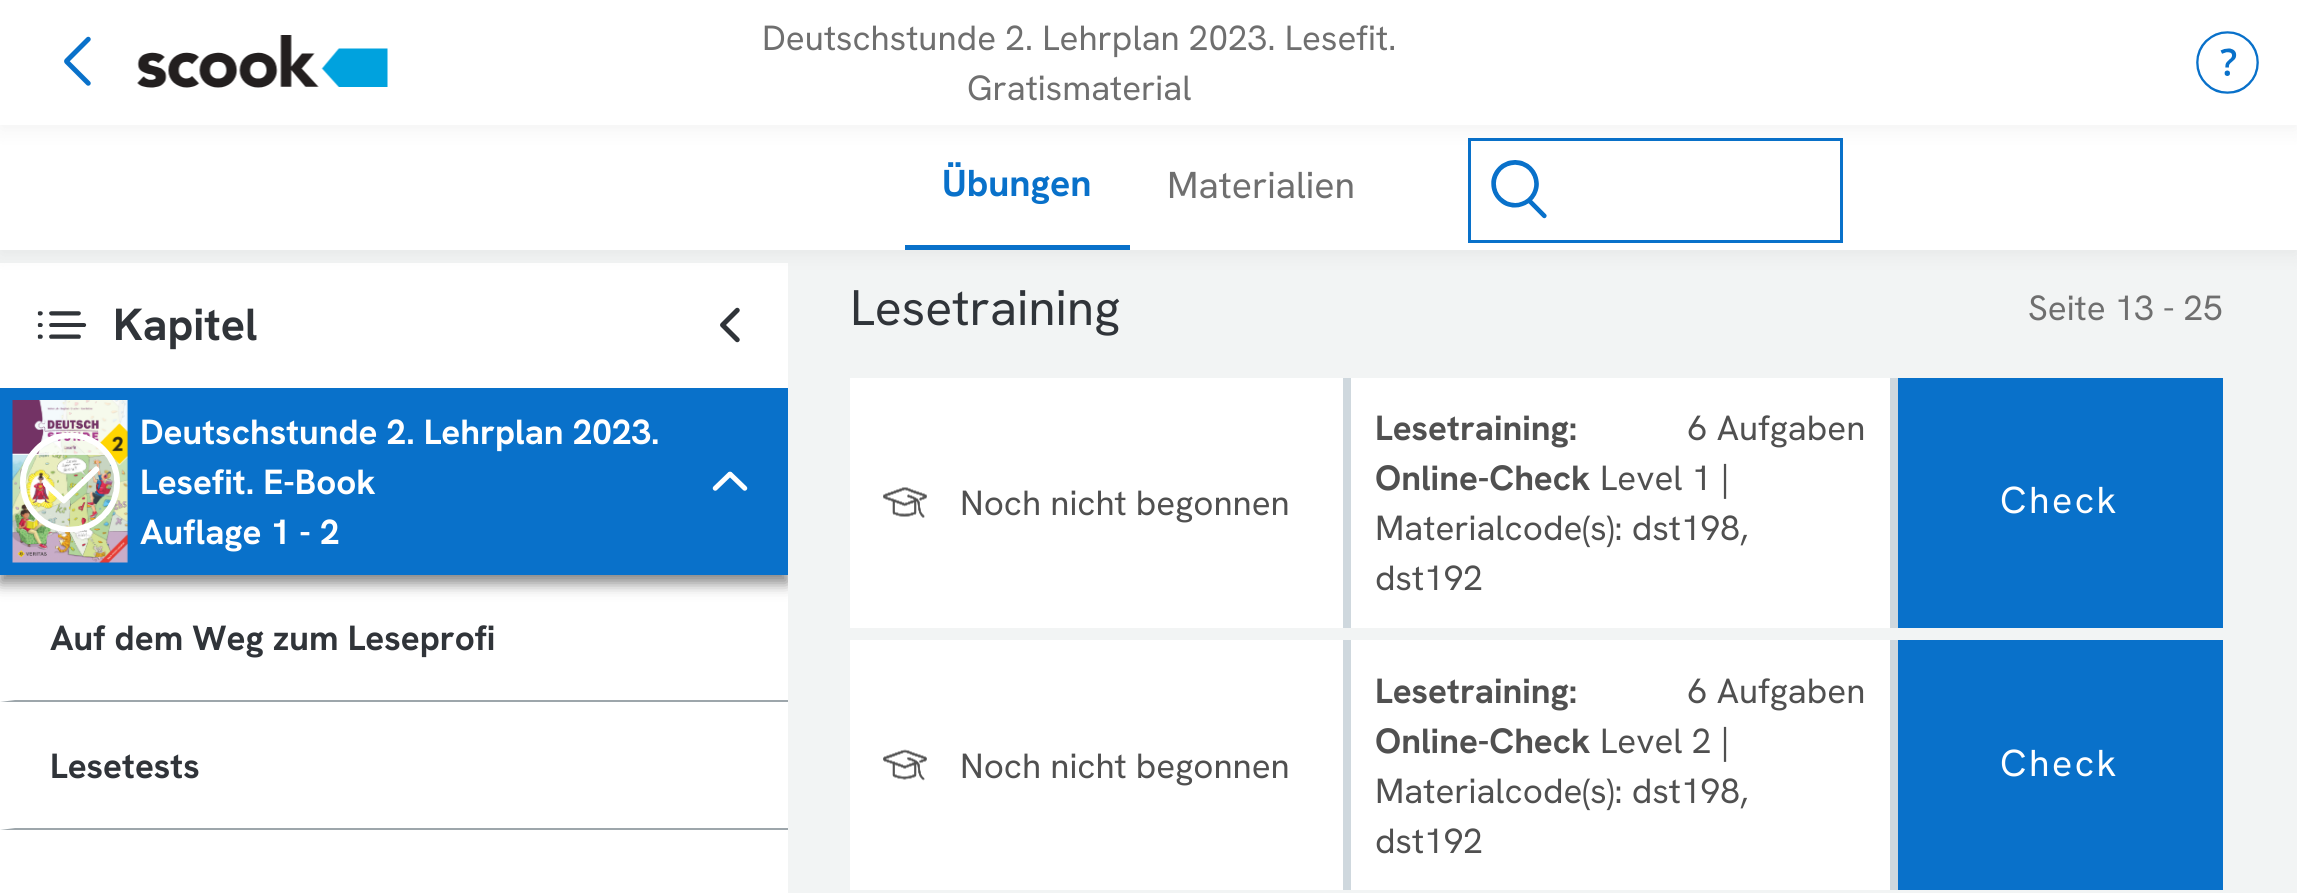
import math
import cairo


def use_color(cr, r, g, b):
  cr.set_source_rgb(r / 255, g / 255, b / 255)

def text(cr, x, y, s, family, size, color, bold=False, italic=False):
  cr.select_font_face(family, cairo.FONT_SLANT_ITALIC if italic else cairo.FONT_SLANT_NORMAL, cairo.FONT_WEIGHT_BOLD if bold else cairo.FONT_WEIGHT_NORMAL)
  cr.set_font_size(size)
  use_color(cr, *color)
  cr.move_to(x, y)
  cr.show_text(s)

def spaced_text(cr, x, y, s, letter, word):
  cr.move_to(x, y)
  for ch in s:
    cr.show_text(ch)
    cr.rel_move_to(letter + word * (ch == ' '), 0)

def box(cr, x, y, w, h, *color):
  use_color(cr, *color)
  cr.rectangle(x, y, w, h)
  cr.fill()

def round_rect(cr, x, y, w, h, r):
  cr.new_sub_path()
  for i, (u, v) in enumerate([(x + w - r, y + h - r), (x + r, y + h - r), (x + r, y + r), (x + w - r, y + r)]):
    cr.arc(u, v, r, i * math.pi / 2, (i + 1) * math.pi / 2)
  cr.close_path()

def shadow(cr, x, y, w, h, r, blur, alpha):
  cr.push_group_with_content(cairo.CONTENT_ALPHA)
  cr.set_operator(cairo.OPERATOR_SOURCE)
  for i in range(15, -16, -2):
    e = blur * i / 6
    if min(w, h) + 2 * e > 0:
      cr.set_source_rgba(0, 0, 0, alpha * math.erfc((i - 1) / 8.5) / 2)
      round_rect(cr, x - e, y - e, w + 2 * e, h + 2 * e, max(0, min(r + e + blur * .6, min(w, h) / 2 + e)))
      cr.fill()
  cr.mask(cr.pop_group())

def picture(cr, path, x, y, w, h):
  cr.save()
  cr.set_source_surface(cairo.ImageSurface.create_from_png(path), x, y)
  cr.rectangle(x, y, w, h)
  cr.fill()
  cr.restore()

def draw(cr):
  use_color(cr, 242, 244, 244)
  cr.paint()
  box(cr, 0, 263, 788, 125, 255, 255, 255)
  use_color(cr, 0, 0, 0)
  shadow(cr, 0, 130, 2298, 125, 0, 10, 0.05)
  box(cr, 0, 125, 2297, 125, 255, 255, 255)
  cr.rectangle(1469.5, 139.5, 372, 102)
  use_color(cr, 9, 113, 202)
  cr.set_line_width(3)
  cr.stroke()
  picture(cr, "img_03.png", 1491, 160, 56, 59)
  use_color(cr, 0, 0, 0)
  shadow(cr, 0, 5, 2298, 125, 0, 10, 0.05)
  box(cr, 0, 0, 2297, 125, 255, 255, 255)
  use_color(cr, 9, 113, 202)
  cr.new_path()
  cr.move_to(65, 59)
  cr.line_to(86.5, 37.5)
  cr.curve_to(87.5, 36.5, 89, 36.5, 90, 37.5)
  cr.curve_to(91, 38.5, 91, 40, 90, 41)
  cr.line_to(68.5, 62.5)
  cr.curve_to(67.5, 63.5, 66, 63.5, 65, 62.5)
  cr.curve_to(64, 61.5, 64, 60, 65, 59)
  cr.close_path()
  cr.fill()
  cr.new_path()
  cr.move_to(68.5, 60)
  cr.line_to(90, 81.5)
  cr.curve_to(91, 82.5, 91, 84, 90, 85)
  cr.curve_to(89, 86, 87.5, 86, 86.5, 85)
  cr.line_to(65, 63.5)
  cr.curve_to(64, 62.5, 64, 61, 65, 60)
  cr.curve_to(66, 59, 67.5, 59, 68.5, 60)
  cr.close_path()
  cr.fill()
  picture(cr, "img_01.png", 137, 35, 251, 53)
  picture(cr, "img_02.png", 2196, 31, 63, 63)
  box(cr, 905, 245, 225, 5, 9, 113, 202)
  box(cr, 0, 575, 788, 318, 255, 255, 255)
  picture(cr, "img_04.png", 37, 311, 50, 28)
  use_color(cr, 48, 52, 57)
  cr.new_path()
  cr.move_to(735.5, 341.5)
  cr.line_to(721, 327)
  cr.curve_to(720, 326, 720, 324.5, 721, 323.5)
  cr.curve_to(722, 322.5, 723.5, 322.5, 724.5, 323.5)
  cr.line_to(739, 338)
  cr.curve_to(740, 339, 740, 340.5, 739, 341.5)
  cr.curve_to(738, 342.5, 736.5, 342.5, 735.5, 341.5)
  cr.close_path()
  cr.fill()
  cr.new_path()
  cr.move_to(721, 323)
  cr.line_to(735.5, 308.5)
  cr.curve_to(736.5, 307.5, 738, 307.5, 739, 308.5)
  cr.curve_to(740, 309.5, 740, 311, 739, 312)
  cr.line_to(724.5, 326.5)
  cr.curve_to(723.5, 327.5, 722, 327.5, 721, 326.5)
  cr.curve_to(720, 325.5, 720, 324, 721, 323)
  cr.close_path()
  cr.fill()
  cr.save()
  cr.rectangle(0, 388, 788, 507)
  cr.clip()
  use_color(cr, 0, 0, 0)
  shadow(cr, 0, 395, 788, 188, 0, 7.5, 0.5)
  cr.restore()
  box(cr, 0, 388, 788, 187, 9, 113, 202)
  picture(cr, "img_05.png", 12, 400, 116, 163)
  picture(cr, "img_06.png", 20, 432, 100, 101)
  use_color(cr, 255, 255, 255)
  cr.new_path()
  cr.move_to(713.5, 486.5)
  cr.line_to(728, 472.5)
  cr.curve_to(729, 471.5, 730.5, 471.5, 731.5, 472.5)
  cr.curve_to(732.5, 473.5, 732.5, 475, 731.5, 476)
  cr.line_to(717, 490)
  cr.curve_to(716, 491, 714.5, 491, 713.5, 490)
  cr.curve_to(712.5, 489, 712.5, 487.5, 713.5, 486.5)
  cr.close_path()
  cr.fill()
  cr.new_path()
  cr.move_to(732, 472.5)
  cr.line_to(746.5, 486.5)
  cr.curve_to(747.5, 487.5, 747.5, 489, 746.5, 490)
  cr.curve_to(745.5, 491, 744, 491, 743, 490)
  cr.line_to(728.5, 476)
  cr.curve_to(727.5, 475, 727.5, 473.5, 728.5, 472.5)
  cr.curve_to(729.5, 471.5, 731, 471.5, 732, 472.5)
  cr.close_path()
  cr.fill()
  use_color(cr, 157, 166, 171)
  cr.new_path()
  cr.move_to(788, 702)
  cr.line_to(0, 702)
  cr.line_to(15, 700)
  cr.line_to(788, 700)
  cr.close_path()
  cr.fill()
  cr.new_path()
  cr.move_to(788, 830)
  cr.line_to(0, 830)
  cr.line_to(15, 828)
  cr.line_to(788, 828)
  cr.close_path()
  cr.fill()
  box(cr, 850, 378, 1040, 250, 255, 255, 255)
  box(cr, 1343, 378, 8, 250, 207, 216, 222)
  picture(cr, "img_07.png", 883, 487, 44, 31)
  box(cr, 1890, 378, 8, 250, 207, 216, 222)
  box(cr, 1898, 378, 325, 250, 9, 113, 202)
  box(cr, 850, 640, 1040, 250, 255, 255, 255)
  box(cr, 1343, 640, 8, 250, 207, 216, 222)
  picture(cr, "img_08.png", 883, 749, 44, 32)
  box(cr, 1890, 640, 8, 250, 207, 216, 222)
  box(cr, 1898, 640, 325, 250, 9, 113, 202)
  text(cr, 762, 50, "Deutschstunde 2. Lehrplan 2023. Lesefit.", "Hanken Grotesk", 35, (111, 111, 111))
  text(cr, 967, 100, "Gratismaterial", "Hanken Grotesk", 35, (111, 111, 111))
  text(cr, 942, 196, "Übungen", "Hanken Grotesk", 37.5, (9, 113, 202), bold=True)
  text(cr, 1167, 198, "Materialien", "Hanken Grotesk", 37.5, (111, 111, 111))
  text(cr, 113, 340, "Kapitel", "Hanken Grotesk", 45, (48, 52, 57), bold=True)
  text(cr, 140, 444, "Deutschstunde 2. Lehrplan 2023.", "Hanken Grotesk", 35, (255, 255, 255), bold=True)
  text(cr, 140, 494, "Lesefit. E-Book", "Hanken Grotesk", 35, (255, 255, 255), bold=True)
  text(cr, 140, 544, "Auflage 1 - 2", "Hanken Grotesk", 35, (255, 255, 255), bold=True)
  text(cr, 50, 650, "Auf dem Weg zum Leseprofi", "Hanken Grotesk", 35, (48, 52, 57), bold=True)
  text(cr, 50, 778, "Lesetests", "Hanken Grotesk", 35, (48, 52, 57), bold=True)
  text(cr, 850, 325, "Lesetraining", "Hanken Grotesk", 50, (48, 52, 57))
  text(cr, 2028, 320, "Seite 13 - 25", "Hanken Grotesk", 35, (111, 111, 111))
  text(cr, 960, 515, "Noch nicht begonnen", "Hanken Grotesk", 35, (80, 80, 80))
  text(cr, 1375, 440, "Lesetraining:", "Hanken Grotesk", 35, (80, 80, 80), bold=True)
  text(cr, 1688, 440, "6 Aufgaben", "Hanken Grotesk", 35, (80, 80, 80))
  text(cr, 1375, 490, "Online-Check", "Hanken Grotesk", 35, (80, 80, 80), bold=True)
  text(cr, 1600, 490, "Level 1 |", "Hanken Grotesk", 35, (80, 80, 80))
  text(cr, 1375, 540, "Materialcode(s): dst198,", "Hanken Grotesk", 35, (80, 80, 80))
  text(cr, 1375, 590, "dst192", "Hanken Grotesk", 35, (80, 80, 80))
  cr.set_font_size(37.5)
  use_color(cr, 255, 255, 255)
  spaced_text(cr, 2000, 513, "Check", 2.5, 0)
  text(cr, 960, 778, "Noch nicht begonnen", "Hanken Grotesk", 35, (80, 80, 80))
  text(cr, 1375, 703, "Lesetraining:", "Hanken Grotesk", 35, (80, 80, 80), bold=True)
  text(cr, 1688, 703, "6 Aufgaben", "Hanken Grotesk", 35, (80, 80, 80))
  text(cr, 1375, 753, "Online-Check", "Hanken Grotesk", 35, (80, 80, 80), bold=True)
  text(cr, 1600, 753, "Level 2 |", "Hanken Grotesk", 35, (80, 80, 80))
  text(cr, 1375, 803, "Materialcode(s): dst198,", "Hanken Grotesk", 35, (80, 80, 80))
  text(cr, 1375, 853, "dst192", "Hanken Grotesk", 35, (80, 80, 80))
  cr.set_font_size(37.5)
  use_color(cr, 255, 255, 255)
  spaced_text(cr, 2000, 776, "Check", 2.5, 0)


surface = cairo.ImageSurface(cairo.FORMAT_RGB24, 2297, 893)
cr = cairo.Context(surface)
options = cairo.FontOptions()
options.set_hint_metrics(cairo.HINT_METRICS_OFF)
options.set_hint_style(cairo.HINT_STYLE_NONE)
cr.set_font_options(options)
cr.set_miter_limit(4)
draw(cr)
surface.write_to_png("out.png")
